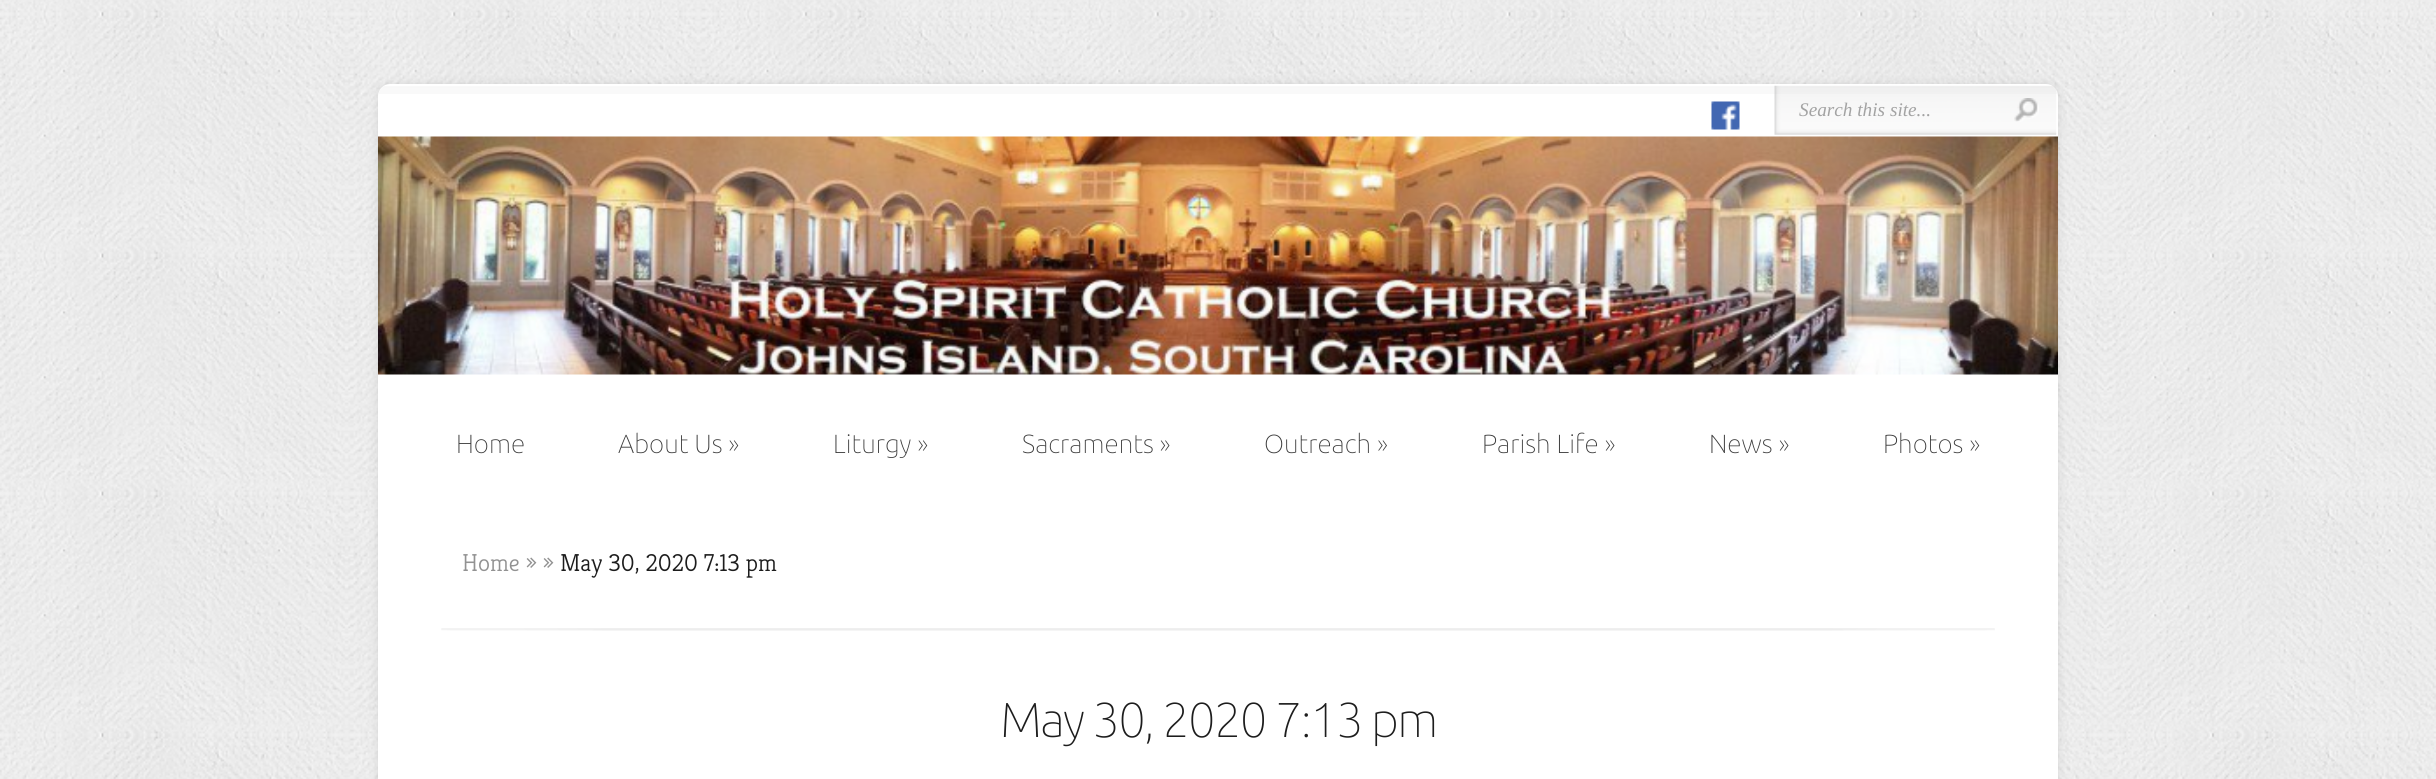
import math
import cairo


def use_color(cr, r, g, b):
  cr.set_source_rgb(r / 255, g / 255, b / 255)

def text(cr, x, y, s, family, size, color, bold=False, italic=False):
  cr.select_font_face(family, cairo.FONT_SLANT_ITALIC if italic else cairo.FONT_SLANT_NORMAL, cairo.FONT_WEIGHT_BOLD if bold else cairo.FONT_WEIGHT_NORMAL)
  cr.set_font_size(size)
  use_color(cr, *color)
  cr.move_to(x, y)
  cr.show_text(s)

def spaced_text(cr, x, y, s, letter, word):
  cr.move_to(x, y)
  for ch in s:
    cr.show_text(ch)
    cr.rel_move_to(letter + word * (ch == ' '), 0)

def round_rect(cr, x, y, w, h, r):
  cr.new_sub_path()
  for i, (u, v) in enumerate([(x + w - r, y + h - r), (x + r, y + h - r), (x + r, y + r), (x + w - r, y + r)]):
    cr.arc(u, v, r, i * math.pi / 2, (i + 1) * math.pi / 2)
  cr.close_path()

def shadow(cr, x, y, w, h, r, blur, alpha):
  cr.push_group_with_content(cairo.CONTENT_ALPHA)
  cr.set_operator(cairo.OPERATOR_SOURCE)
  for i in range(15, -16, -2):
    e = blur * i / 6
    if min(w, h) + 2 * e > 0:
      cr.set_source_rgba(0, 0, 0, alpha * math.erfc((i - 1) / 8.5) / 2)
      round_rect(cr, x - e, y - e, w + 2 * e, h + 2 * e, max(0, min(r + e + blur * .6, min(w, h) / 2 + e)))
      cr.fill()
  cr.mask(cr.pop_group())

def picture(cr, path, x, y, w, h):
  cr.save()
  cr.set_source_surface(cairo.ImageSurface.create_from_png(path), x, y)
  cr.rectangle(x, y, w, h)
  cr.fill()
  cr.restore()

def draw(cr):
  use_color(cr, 255, 255, 255)
  cr.paint()
  picture(cr, "img_01.png", 0, 0, 2436, 779)
  use_color(cr, 0, 0, 0)
  shadow(cr, 378, 84, 1680, 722, 12, 5, 0.1)
  use_color(cr, 255, 255, 255)
  round_rect(cr, 378, 84, 1680, 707, 12)
  cr.fill()
  picture(cr, "img_02.png", 379, 86, 1678, 8)
  picture(cr, "img_03.png", 1711, 101, 29, 29)
  picture(cr, "img_04.png", 1774, 85, 283, 50)
  picture(cr, "img_05.png", 2014, 98, 25, 24)
  picture(cr, "img_06.png", 378, 136, 1680, 239)
  picture(cr, "img_07.png", 441, 628, 1554, 3)
  text(cr, 1799, 116, "Search this site...", "Liberation Serif", 19.25, (163, 163, 163), italic=True)
  text(cr, 456, 453, "Home", "Ubuntu Thin", 26.25, (57, 57, 57))
  text(cr, 618, 453, "About Us »", "Ubuntu Thin", 26.25, (57, 57, 57))
  text(cr, 833, 453, "Liturgy »", "Ubuntu Thin", 26.25, (57, 57, 57))
  text(cr, 1022, 453, "Sacraments »", "Ubuntu Thin", 26.25, (57, 57, 57))
  text(cr, 1264, 453, "Outreach »", "Ubuntu Thin", 26.25, (57, 57, 57))
  text(cr, 1482, 453, "Parish Life »", "Ubuntu Thin", 26.25, (57, 57, 57))
  text(cr, 1709, 453, "News »", "Ubuntu Thin", 26.25, (57, 57, 57))
  text(cr, 1883, 453, "Photos »", "Ubuntu Thin", 26.25, (57, 57, 57))
  text(cr, 462, 571, "Home » »", "Kreon Light", 24.5, (146, 146, 146))
  text(cr, 560, 571, "May 30, 2020 7:13 pm", "Kreon Light", 24.5, (29, 29, 29))
  cr.select_font_face("Ubuntu Thin")
  cr.set_font_size(49)
  spaced_text(cr, 1000, 737, "May 30, 2020 7:13 pm", -1.75, 0)


surface = cairo.ImageSurface(cairo.FORMAT_RGB24, 2436, 779)
cr = cairo.Context(surface)
options = cairo.FontOptions()
options.set_hint_metrics(cairo.HINT_METRICS_OFF)
options.set_hint_style(cairo.HINT_STYLE_NONE)
cr.set_font_options(options)
cr.set_miter_limit(4)
draw(cr)
surface.write_to_png("out.png")
